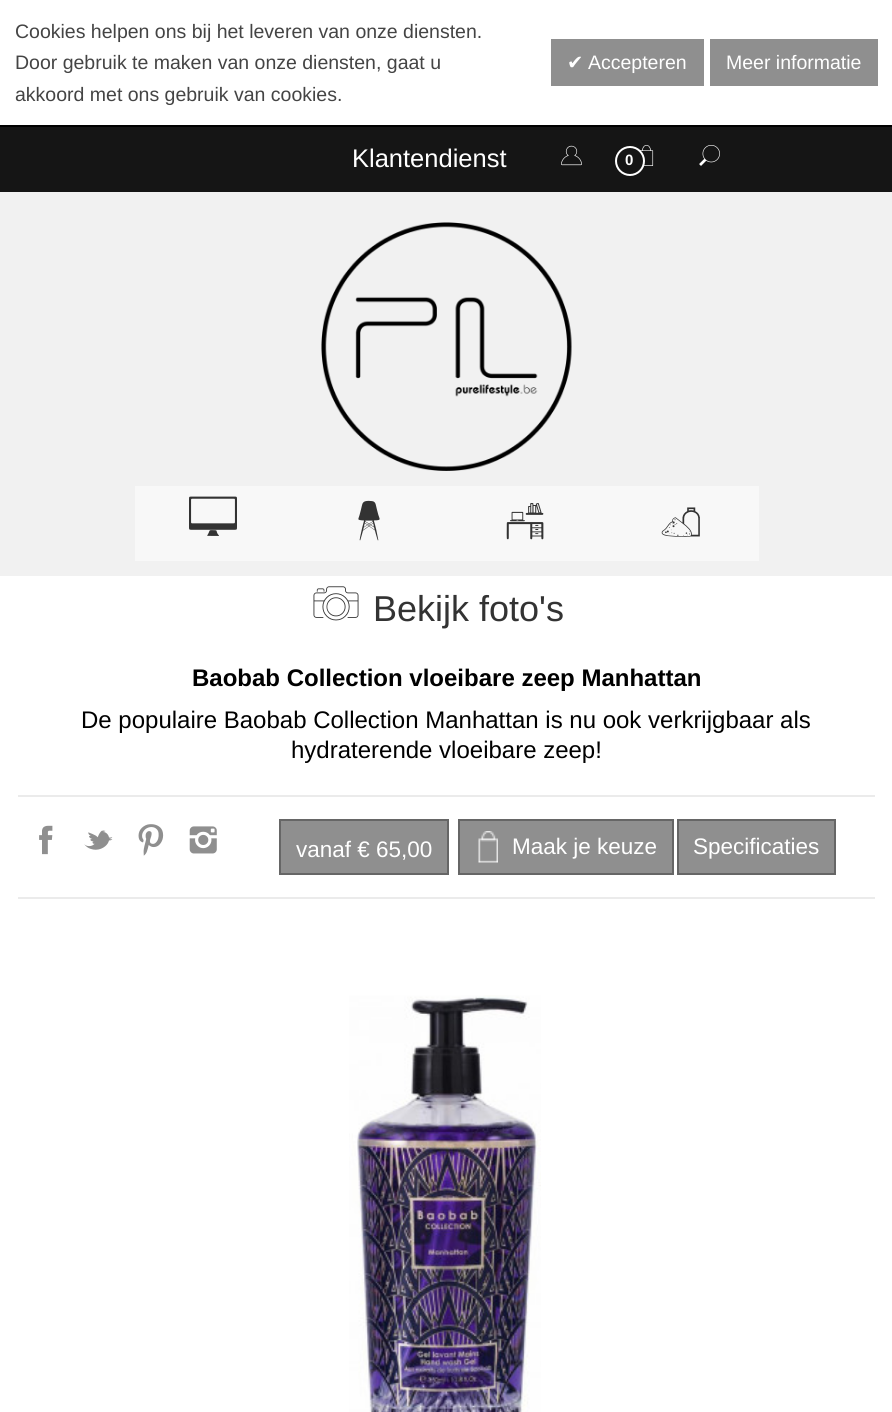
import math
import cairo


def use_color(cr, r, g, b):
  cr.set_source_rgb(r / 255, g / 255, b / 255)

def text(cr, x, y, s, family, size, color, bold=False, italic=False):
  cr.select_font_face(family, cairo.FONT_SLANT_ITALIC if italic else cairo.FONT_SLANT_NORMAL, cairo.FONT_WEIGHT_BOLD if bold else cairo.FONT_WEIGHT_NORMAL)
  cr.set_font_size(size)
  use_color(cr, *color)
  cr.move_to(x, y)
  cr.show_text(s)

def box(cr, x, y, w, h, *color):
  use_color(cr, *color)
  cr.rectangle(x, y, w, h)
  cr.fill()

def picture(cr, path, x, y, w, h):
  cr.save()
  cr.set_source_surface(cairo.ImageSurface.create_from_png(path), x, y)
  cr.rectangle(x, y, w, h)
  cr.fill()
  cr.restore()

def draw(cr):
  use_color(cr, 255, 255, 255)
  cr.paint()
  box(cr, 0, 125, 892, 2, 0, 0, 0)
  box(cr, 551, 39, 153, 47, 143, 143, 143)
  box(cr, 710, 39, 168, 47, 143, 143, 143)
  box(cr, 0, 127, 892, 65, 21, 21, 21)
  picture(cr, "img_01.png", 561, 145, 21, 21)
  picture(cr, "img_02.png", 640, 145, 14, 21)
  cr.arc(630, 161, 14, 0, 2 * math.pi)
  cr.fill_preserve()
  use_color(cr, 255, 255, 255)
  cr.stroke()
  picture(cr, "img_03.png", 699, 145, 21, 21)
  box(cr, 0, 192, 892, 384, 241, 241, 241)
  picture(cr, "img_04.png", 321, 222, 251, 249)
  box(cr, 135, 486, 624, 75, 248, 248, 248)
  picture(cr, "img_05.png", 189, 496, 48, 40)
  picture(cr, "img_06.png", 358, 500, 22, 41)
  picture(cr, "img_07.png", 506, 503, 38, 37)
  picture(cr, "img_08.png", 661, 507, 39, 30)
  picture(cr, "img_09.png", 313, 586, 46, 35)
  box(cr, 18, 795, 857, 2, 235, 235, 235)
  box(cr, 18, 897, 857, 2, 235, 235, 235)
  picture(cr, "img_10.png", 39, 825, 14, 30)
  picture(cr, "img_11.png", 84, 830, 29, 20)
  picture(cr, "img_12.png", 138, 824, 26, 32)
  picture(cr, "img_13.png", 189, 826, 28, 28)
  use_color(cr, 143, 143, 143)
  cr.rectangle(280, 820, 168, 54)
  cr.fill_preserve()
  use_color(cr, 102, 102, 102)
  cr.stroke()
  box(cr, 460, 821, 212, 52, 143, 143, 143)
  picture(cr, "img_14.png", 478, 831, 20, 32)
  cr.rectangle(459, 820, 214, 54)
  use_color(cr, 102, 102, 102)
  cr.stroke()
  use_color(cr, 143, 143, 143)
  cr.rectangle(678, 820, 157, 54)
  cr.fill_preserve()
  use_color(cr, 102, 102, 102)
  cr.stroke()
  picture(cr, "img_15.png", 349, 995, 192, 417)
  text(cr, 15, 38, "Cookies helpen ons bij het leveren van onze diensten.", "Liberation Sans", 19.5, (68, 68, 68))
  text(cr, 15, 69, "Door gebruik te maken van onze diensten, gaat u", "Liberation Sans", 19.5, (68, 68, 68))
  text(cr, 15, 101, "akkoord met ons gebruik van cookies.", "Liberation Sans", 19.5, (68, 68, 68))
  text(cr, 567, 69, "✔", "DejaVu Sans", 19.5, (255, 255, 255))
  text(cr, 588, 69, "Accepteren", "Liberation Sans", 19.5, (255, 255, 255))
  text(cr, 726, 69, "Meer informatie", "Liberation Sans", 19.5, (255, 255, 255))
  text(cr, 352, 167, "Klantendienst", "Liberation Sans", 25.5, (255, 255, 255))
  text(cr, 625, 165, "0", "Liberation Sans", 15, (255, 255, 255), bold=True)
  text(cr, 373, 621, "Bekijk foto's", "Liberation Sans", 36, (51, 51, 51))
  text(cr, 192, 686, "Baobab Collection vloeibare zeep Manhattan", "Liberation Sans", 24, (0, 0, 0), bold=True)
  text(cr, 81, 728, "De populaire Baobab Collection Manhattan is nu ook verkrijgbaar als", "Liberation Sans", 24, (0, 0, 0))
  text(cr, 291, 758, "hydraterende vloeibare zeep!", "Liberation Sans", 24, (0, 0, 0))
  text(cr, 296, 857, "vanaf € 65,00", "Liberation Sans", 22.5, (255, 255, 255))
  text(cr, 512, 854, "Maak je keuze", "Liberation Sans", 22.5, (255, 255, 255))
  text(cr, 693, 854, "Specificaties", "Liberation Sans", 22.5, (255, 255, 255))


surface = cairo.ImageSurface(cairo.FORMAT_RGB24, 892, 1412)
cr = cairo.Context(surface)
options = cairo.FontOptions()
options.set_hint_metrics(cairo.HINT_METRICS_OFF)
options.set_hint_style(cairo.HINT_STYLE_NONE)
cr.set_font_options(options)
cr.set_miter_limit(4)
draw(cr)
surface.write_to_png("out.png")
